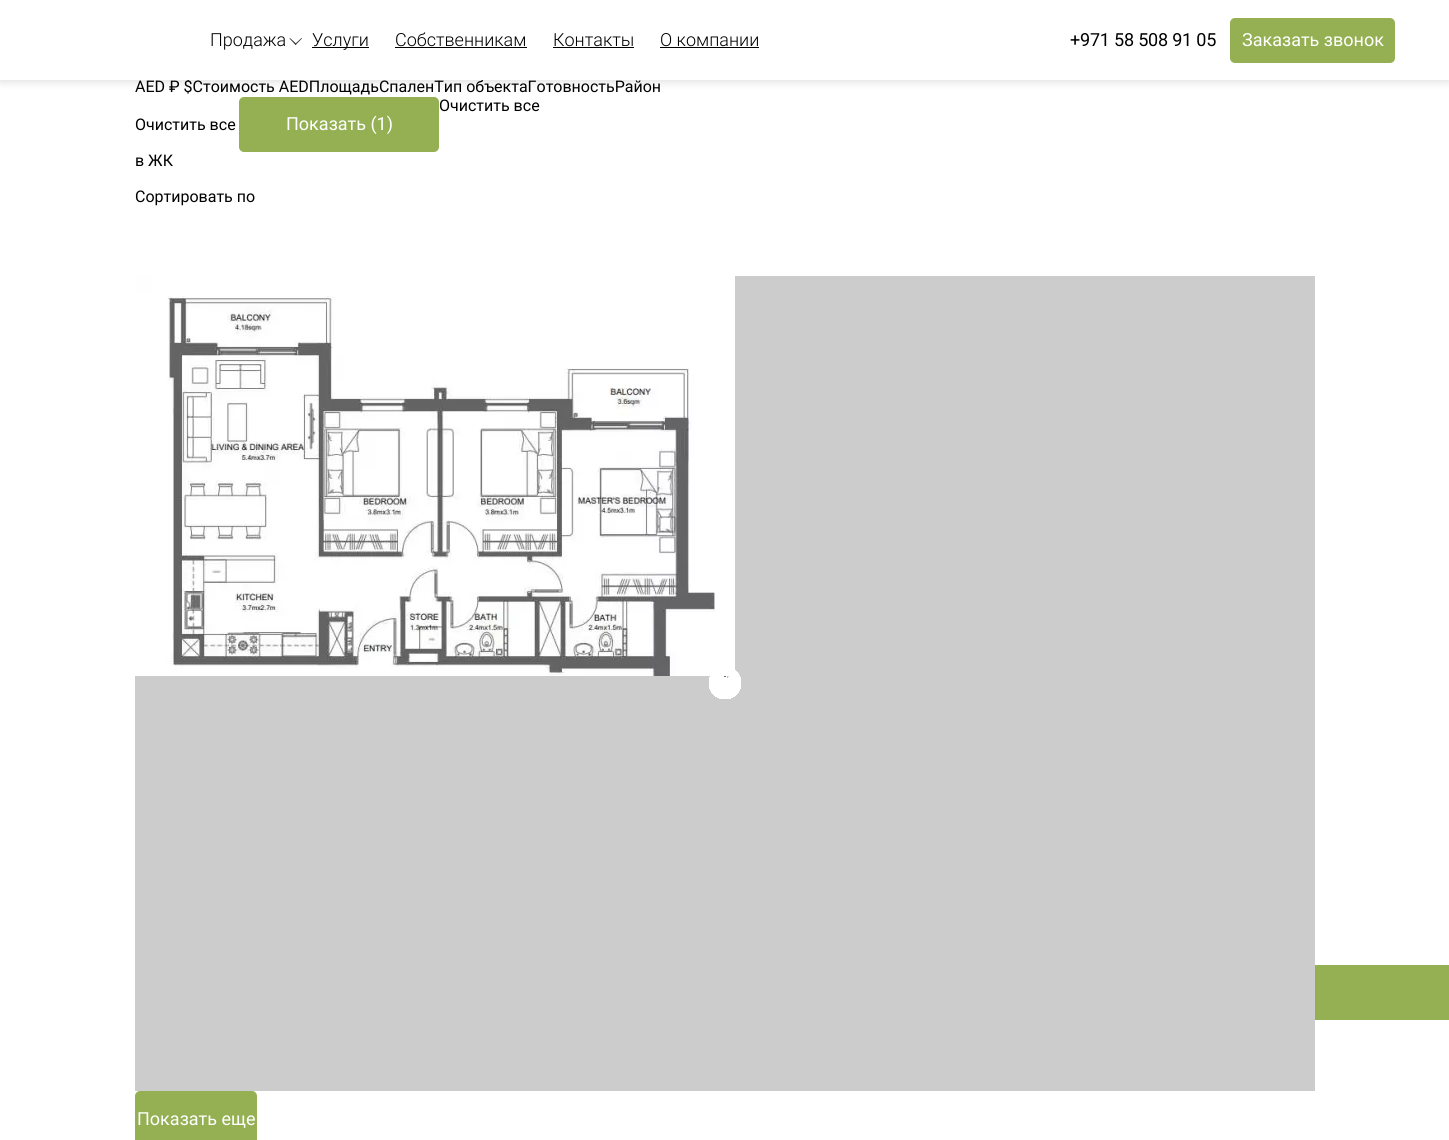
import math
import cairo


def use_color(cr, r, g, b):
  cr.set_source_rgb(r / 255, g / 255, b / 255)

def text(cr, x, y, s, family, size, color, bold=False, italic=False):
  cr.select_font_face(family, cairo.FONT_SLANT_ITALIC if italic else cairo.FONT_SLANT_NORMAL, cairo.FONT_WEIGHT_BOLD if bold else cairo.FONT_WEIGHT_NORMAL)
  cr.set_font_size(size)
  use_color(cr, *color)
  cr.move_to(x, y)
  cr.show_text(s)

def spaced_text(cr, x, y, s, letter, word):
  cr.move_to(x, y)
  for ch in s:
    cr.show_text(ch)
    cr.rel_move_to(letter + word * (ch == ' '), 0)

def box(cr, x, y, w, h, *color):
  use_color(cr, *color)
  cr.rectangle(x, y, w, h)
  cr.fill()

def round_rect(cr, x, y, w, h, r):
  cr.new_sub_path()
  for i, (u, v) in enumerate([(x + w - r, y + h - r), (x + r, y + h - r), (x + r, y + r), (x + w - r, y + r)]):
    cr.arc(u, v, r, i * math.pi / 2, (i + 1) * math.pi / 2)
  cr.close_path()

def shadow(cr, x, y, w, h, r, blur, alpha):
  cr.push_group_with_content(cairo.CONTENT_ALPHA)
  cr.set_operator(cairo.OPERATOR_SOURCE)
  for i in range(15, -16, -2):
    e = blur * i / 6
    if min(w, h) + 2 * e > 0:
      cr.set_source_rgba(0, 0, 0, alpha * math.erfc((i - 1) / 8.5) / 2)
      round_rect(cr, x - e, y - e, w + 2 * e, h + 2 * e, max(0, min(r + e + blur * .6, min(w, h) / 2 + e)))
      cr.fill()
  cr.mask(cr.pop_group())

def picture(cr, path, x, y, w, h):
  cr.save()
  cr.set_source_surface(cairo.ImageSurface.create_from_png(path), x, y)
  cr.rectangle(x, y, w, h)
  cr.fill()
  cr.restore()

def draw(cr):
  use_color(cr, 255, 255, 255)
  cr.paint()
  use_color(cr, 0, 0, 0)
  shadow(cr, 0, 1, 1449, 80, 0, 5, 0.15)
  use_color(cr, 148, 176, 83)
  round_rect(cr, 240, 98, 198, 53, 4)
  cr.fill_preserve()
  cr.stroke()
  box(cr, 1315, 967, 134, 51, 148, 176, 83)
  cr.rectangle(240, 966, 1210, 53)
  cr.stroke()
  box(cr, 135, 276, 1180, 815, 204, 204, 204)
  picture(cr, "img_01.png", 709, 670, 32, 29)
  picture(cr, "img_02.png", 135, 276, 600, 400)
  use_color(cr, 148, 176, 83)
  round_rect(cr, 136, 1092, 120, 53, 4)
  cr.fill_preserve()
  cr.stroke()
  text(cr, 135, 92, "AED ₽ $Стоимость AEDПлощадьСпаленТип объектаГотовностьРайон", "Roboto", 16, (0, 0, 0))
  box(cr, 0, 0, 1449, 80, 255, 255, 255)
  use_color(cr, 148, 176, 83)
  round_rect(cr, 1230, 18, 165, 45, 5)
  cr.fill()
  text(cr, 1242, 46, "Заказать звонок", "Roboto", 18, (255, 255, 255))
  text(cr, 660, 46, "О компании", "Roboto Light", 18, (0, 0, 0))
  box(cr, 660, 47, 99, 1, 0, 0, 0)
  text(cr, 553, 46, "Контакты", "Roboto Light", 18, (0, 0, 0))
  box(cr, 553, 47, 81, 1, 0, 0, 0)
  text(cr, 395, 46, "Собственникам", "Roboto Light", 18, (0, 0, 0))
  box(cr, 395, 47, 132, 1, 0, 0, 0)
  box(cr, 312, 47, 57, 1, 0, 0, 0)
  text(cr, 312, 46, "Услуги", "Roboto Light", 18, (0, 0, 0))
  use_color(cr, 51, 51, 51)
  cr.new_path()
  cr.move_to(302, 38.5)
  cr.line_to(295.5, 45)
  cr.line_to(295, 44)
  cr.line_to(301.5, 38)
  cr.close_path()
  cr.fill()
  cr.new_path()
  cr.move_to(296.5, 44)
  cr.line_to(295.5, 45)
  cr.line_to(289.5, 38.5)
  cr.line_to(290, 38)
  cr.close_path()
  cr.fill()
  text(cr, 210, 46, "Продажа", "Roboto Light", 18, (0, 0, 0))
  cr.select_font_face("Roboto")
  spaced_text(cr, 1070, 46, "+971 58 508 91 05", -0.2, 0)
  text(cr, 135, 130, "Очистить все", "Roboto", 16, (0, 0, 0))
  text(cr, 439, 111, "Очистить все", "Roboto", 16, (0, 0, 0))
  text(cr, 286, 130, "Показать (1)", "Roboto", 18, (255, 255, 255))
  text(cr, 135, 166, "в ЖК", "Roboto", 16, (0, 0, 0))
  text(cr, 135, 202, "Сортировать по", "Roboto", 16, (0, 0, 0))
  text(cr, 137, 1125, "Показать еще", "Roboto", 18, (255, 255, 255))


surface = cairo.ImageSurface(cairo.FORMAT_RGB24, 1449, 1140)
cr = cairo.Context(surface)
options = cairo.FontOptions()
options.set_hint_metrics(cairo.HINT_METRICS_OFF)
options.set_hint_style(cairo.HINT_STYLE_NONE)
cr.set_font_options(options)
cr.set_miter_limit(4)
draw(cr)
surface.write_to_png("out.png")
